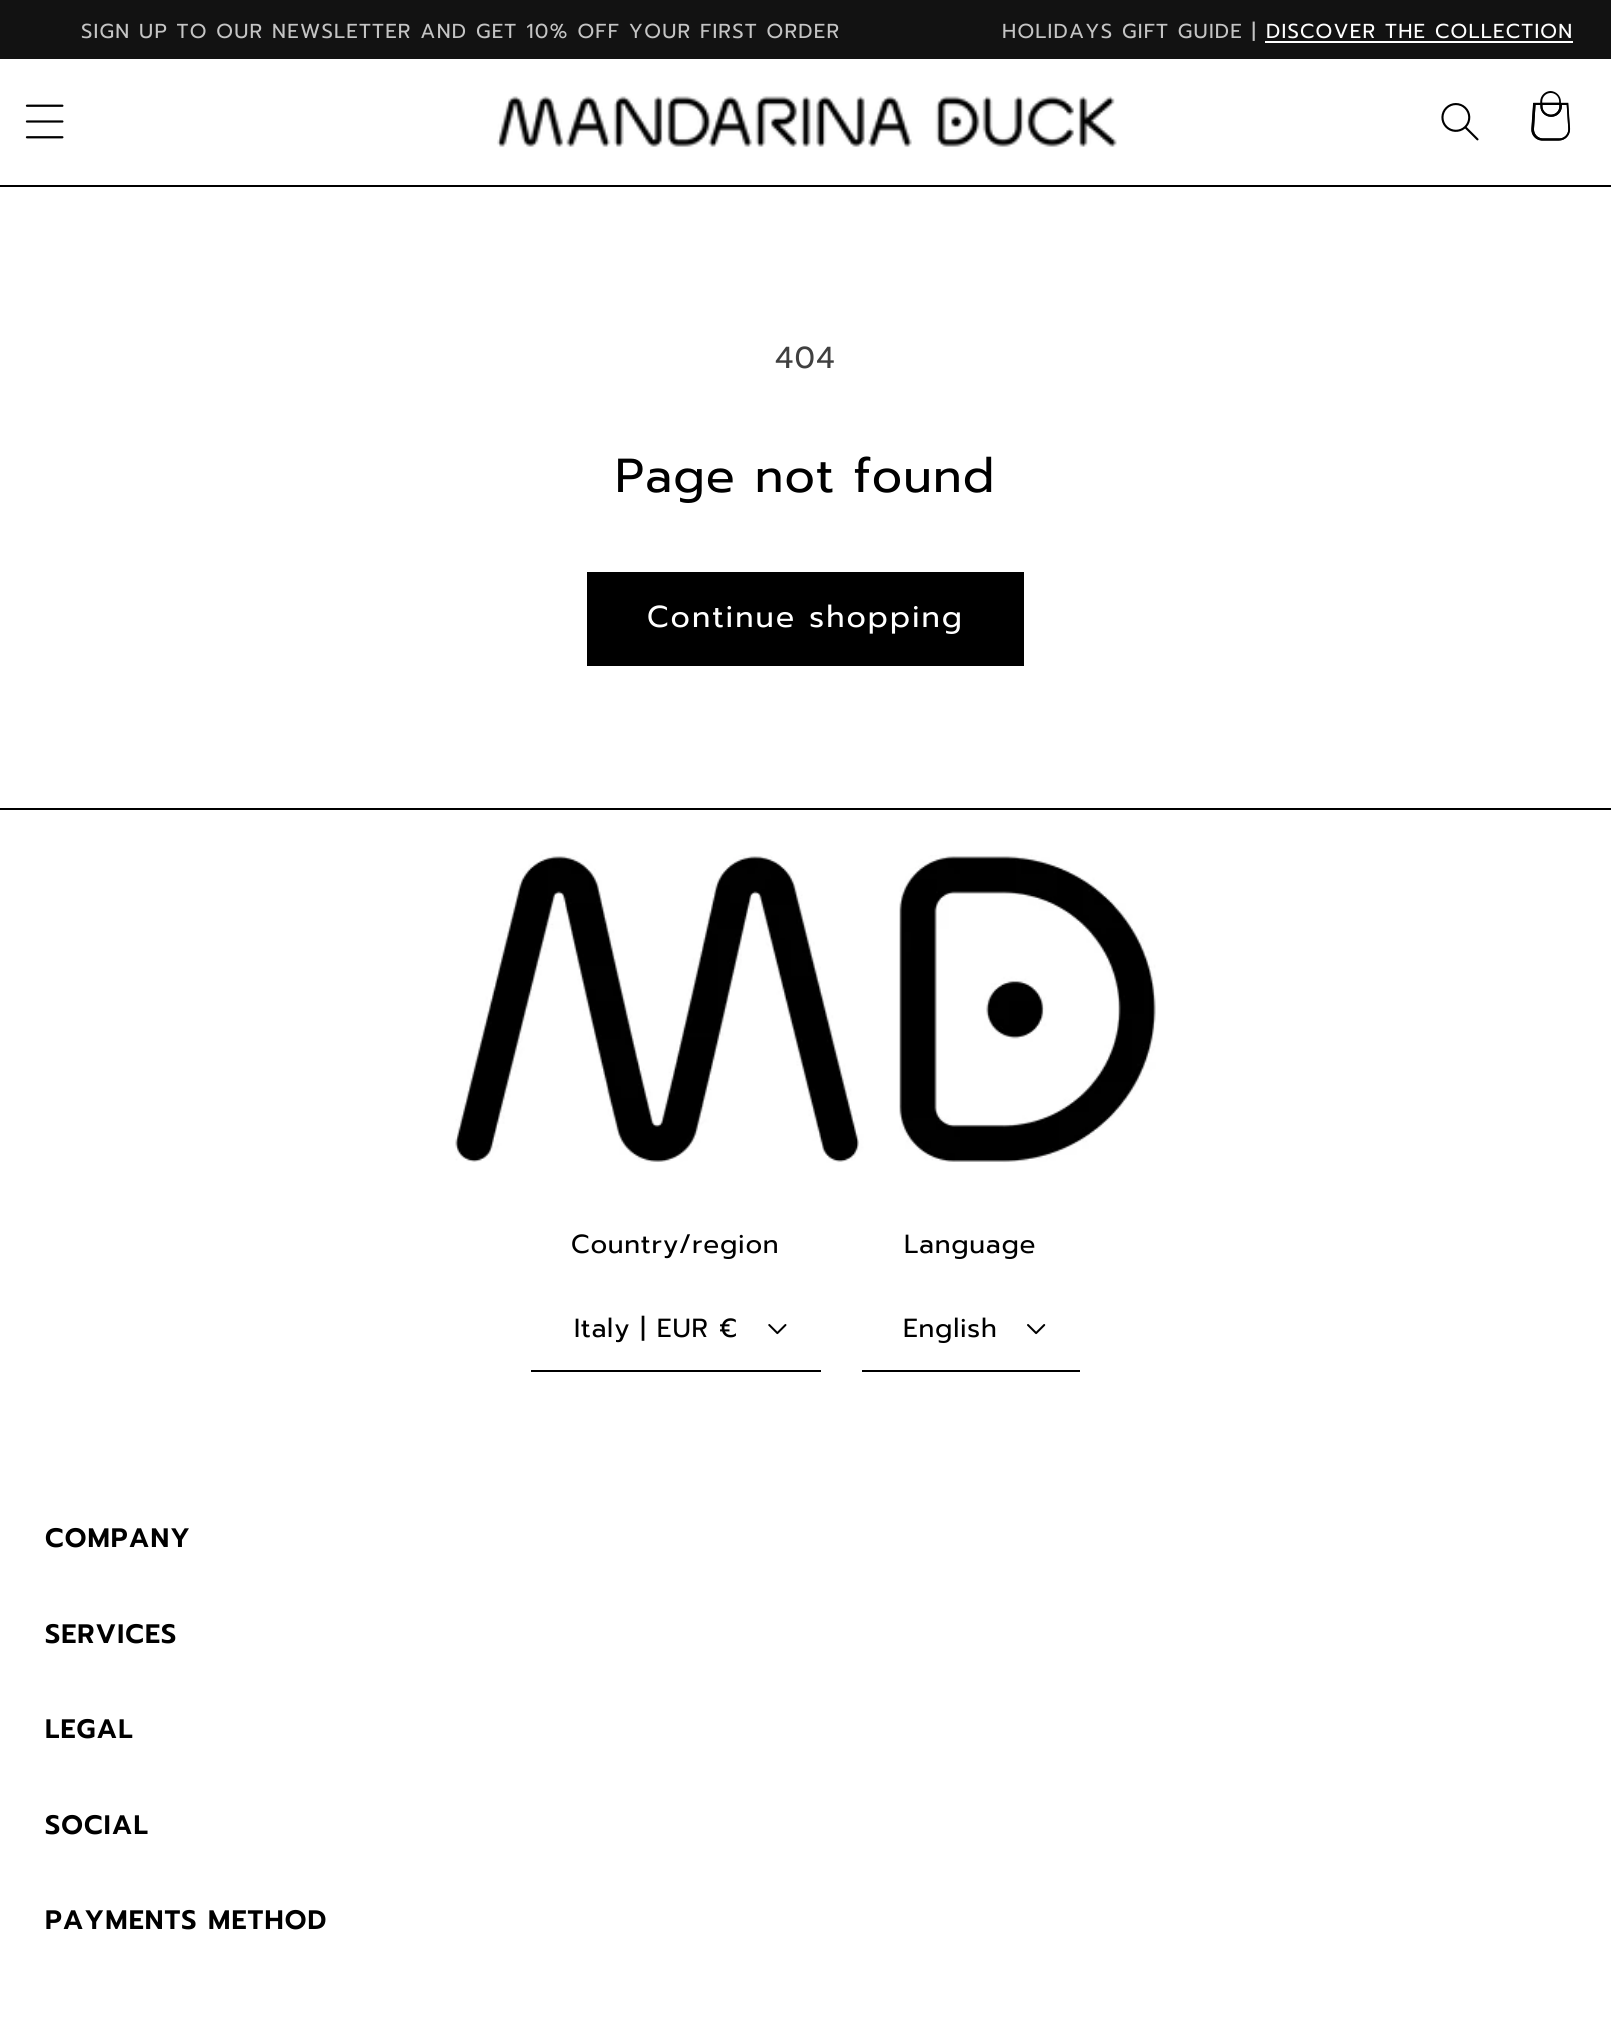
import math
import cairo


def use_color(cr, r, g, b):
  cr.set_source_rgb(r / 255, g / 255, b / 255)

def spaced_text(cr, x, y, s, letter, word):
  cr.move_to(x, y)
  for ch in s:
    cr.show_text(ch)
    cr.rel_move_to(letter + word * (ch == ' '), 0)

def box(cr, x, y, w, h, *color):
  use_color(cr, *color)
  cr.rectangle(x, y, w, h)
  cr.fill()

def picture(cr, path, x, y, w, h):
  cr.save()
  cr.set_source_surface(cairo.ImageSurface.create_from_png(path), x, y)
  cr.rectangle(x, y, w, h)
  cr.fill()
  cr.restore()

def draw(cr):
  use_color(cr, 255, 255, 255)
  cr.paint()
  box(cr, 0, 0, 1611, 59, 18, 18, 18)
  box(cr, 1265, 41, 308, 2, 255, 255, 255)
  box(cr, 0, 185, 1611, 2, 0, 0, 0)
  picture(cr, "img_01.png", 25, 104, 39, 35)
  picture(cr, "img_02.png", 497, 96, 620, 51)
  picture(cr, "img_03.png", 1441, 103, 38, 38)
  picture(cr, "img_04.png", 1531, 91, 40, 50)
  box(cr, 587, 572, 437, 94, 0, 0, 0)
  box(cr, 0, 808, 1611, 2, 0, 0, 0)
  picture(cr, "img_05.png", 455, 855, 701, 308)
  box(cr, 531, 1370, 290, 2, 0, 0, 0)
  picture(cr, "img_06.png", 768, 1324, 19, 11)
  box(cr, 862, 1370, 218, 2, 0, 0, 0)
  picture(cr, "img_07.png", 1027, 1324, 19, 11)
  cr.select_font_face("Prompt")
  cr.set_font_size(20.25)
  use_color(cr, 196, 196, 196)
  spaced_text(cr, 81, 38, "SIGN UP TO OUR NEWSLETTER AND GET 10% OFF YOUR FIRST ORDER", 1.22, 0)
  spaced_text(cr, 1002, 38, "HOLIDAYS GIFT GUIDE |", 1.22, 0)
  use_color(cr, 255, 255, 255)
  spaced_text(cr, 1266, 38, "DISCOVER THE COLLECTION", 1.22, 0)
  cr.set_font_size(30.4)
  use_color(cr, 64, 64, 64)
  spaced_text(cr, 775, 368, "404", 1.22, 0)
  cr.set_font_size(47.75)
  use_color(cr, 0, 0, 0)
  spaced_text(cr, 615, 492, "Page not found", 1.1, 0)
  cr.set_font_size(30.4)
  use_color(cr, 255, 255, 255)
  spaced_text(cr, 647, 627, "Continue shopping", 2, 0)
  cr.set_font_size(26.25)
  use_color(cr, 0, 0, 0)
  spaced_text(cr, 571, 1253, "Country/region", 0.75, 0)
  spaced_text(cr, 574, 1337, "Italy | EUR €", 0.75, 0)
  spaced_text(cr, 904, 1253, "Language", 0.75, 0)
  spaced_text(cr, 903, 1337, "English", 0.75, 0)
  cr.select_font_face("Prompt SemiBold")
  cr.set_font_size(26.75)
  spaced_text(cr, 45, 1547, "COMPANY", 1.1, 0)
  spaced_text(cr, 45, 1643, "SERVICES", 1.1, 0)
  spaced_text(cr, 45, 1738, "LEGAL", 1.1, 0)
  spaced_text(cr, 45, 1834, "SOCIAL", 1.1, 0)
  spaced_text(cr, 45, 1929, "PAYMENTS METHOD", 1.1, 0)


surface = cairo.ImageSurface(cairo.FORMAT_RGB24, 1611, 2025)
cr = cairo.Context(surface)
options = cairo.FontOptions()
options.set_hint_metrics(cairo.HINT_METRICS_OFF)
options.set_hint_style(cairo.HINT_STYLE_NONE)
cr.set_font_options(options)
cr.set_miter_limit(4)
draw(cr)
surface.write_to_png("out.png")
